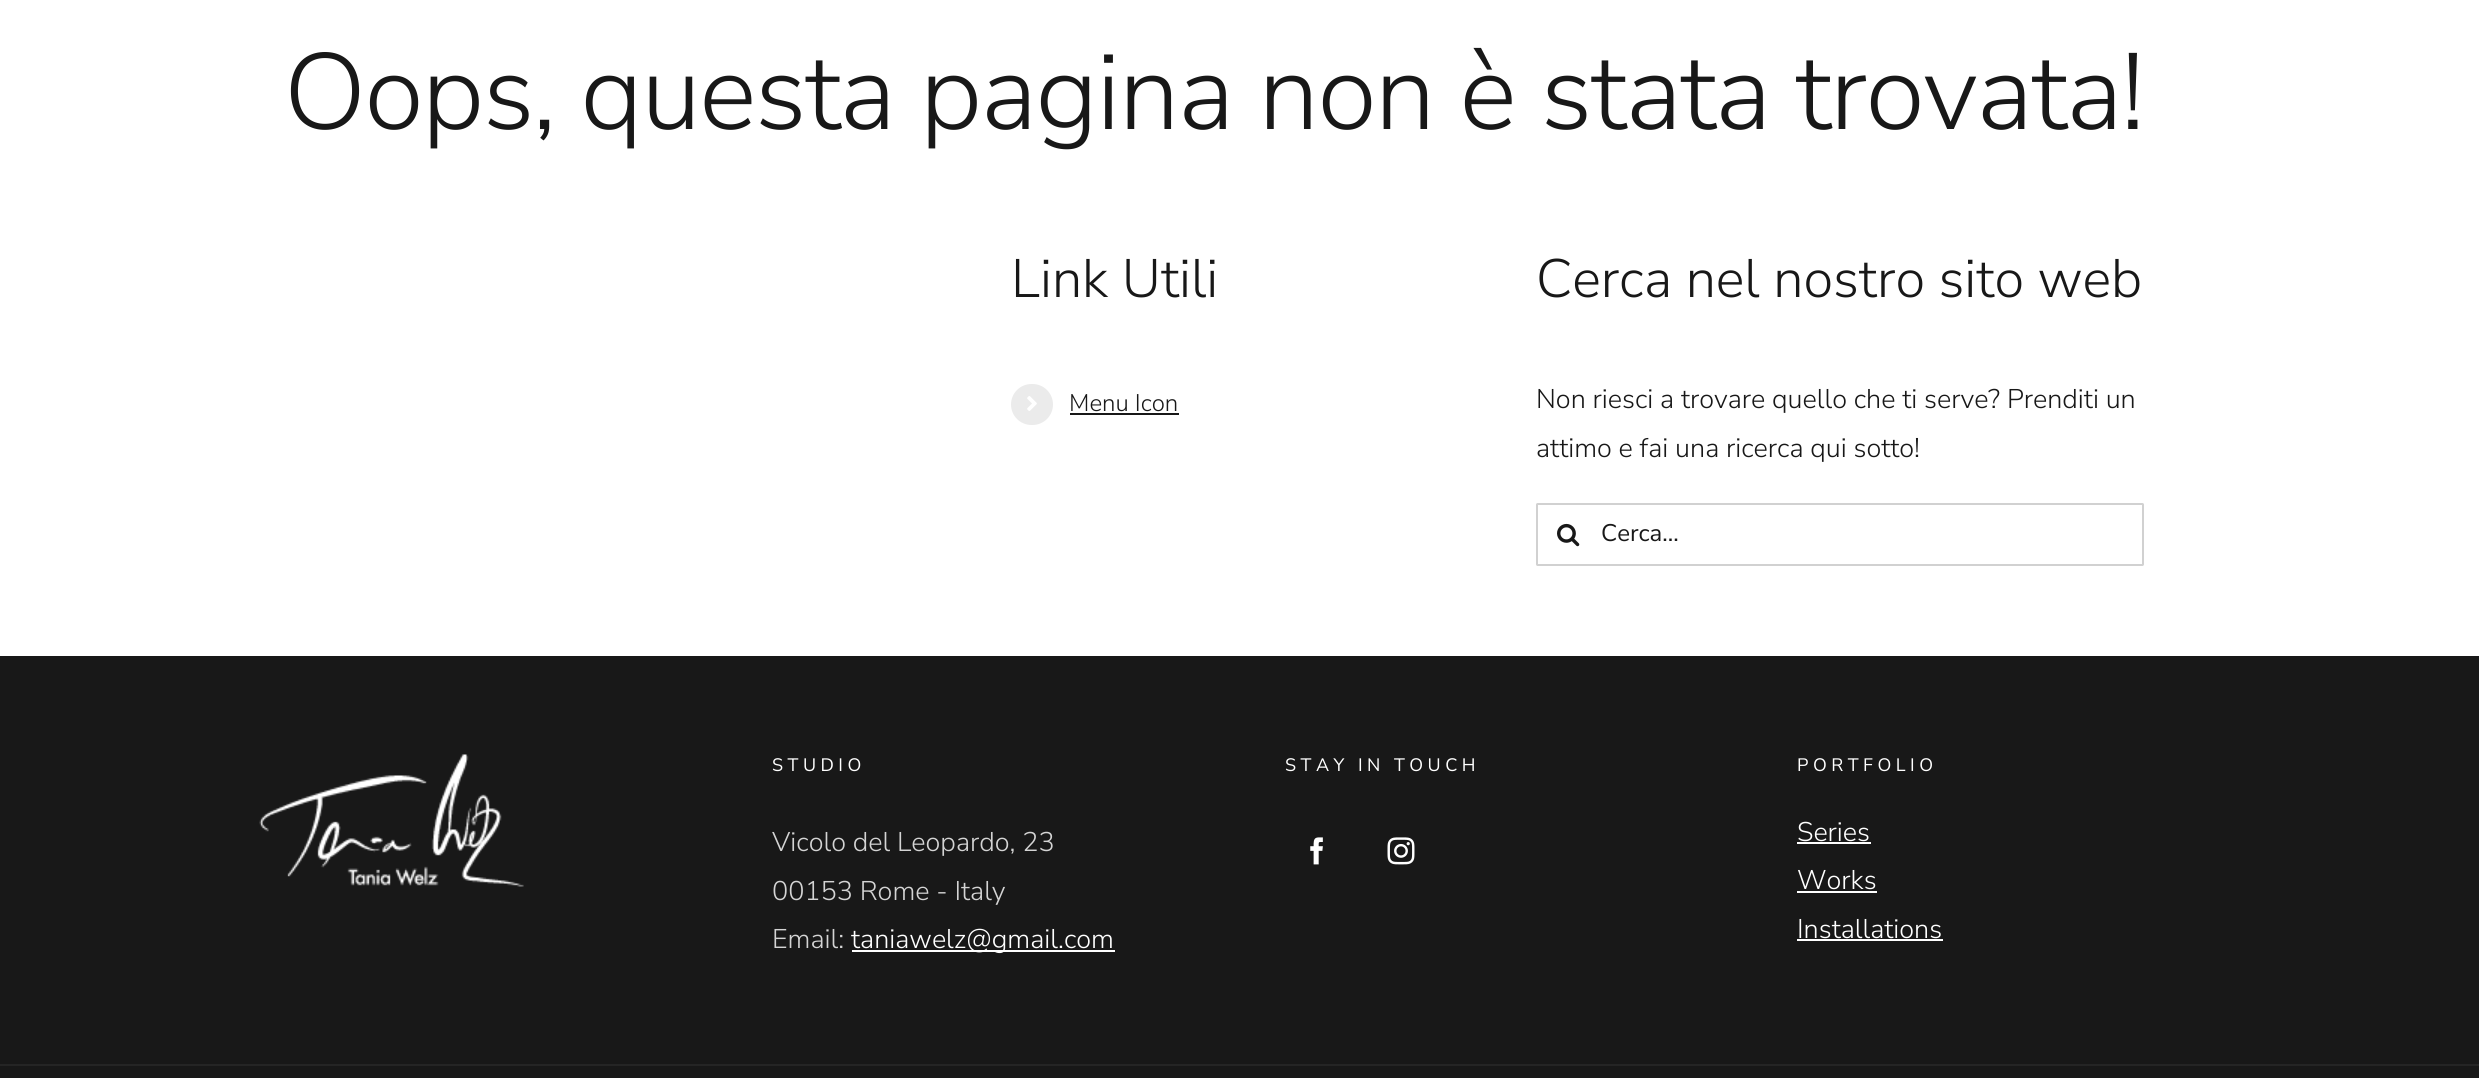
import math
import cairo


def use_color(cr, r, g, b):
  cr.set_source_rgb(r / 255, g / 255, b / 255)

def text(cr, x, y, s, family, size, color, bold=False, italic=False):
  cr.select_font_face(family, cairo.FONT_SLANT_ITALIC if italic else cairo.FONT_SLANT_NORMAL, cairo.FONT_WEIGHT_BOLD if bold else cairo.FONT_WEIGHT_NORMAL)
  cr.set_font_size(size)
  use_color(cr, *color)
  cr.move_to(x, y)
  cr.show_text(s)

def spaced_text(cr, x, y, s, letter, word):
  cr.move_to(x, y)
  for ch in s:
    cr.show_text(ch)
    cr.rel_move_to(letter + word * (ch == ' '), 0)

def box(cr, x, y, w, h, *color):
  use_color(cr, *color)
  cr.rectangle(x, y, w, h)
  cr.fill()

def round_rect(cr, x, y, w, h, r):
  cr.new_sub_path()
  for i, (u, v) in enumerate([(x + w - r, y + h - r), (x + r, y + h - r), (x + r, y + r), (x + w - r, y + r)]):
    cr.arc(u, v, r, i * math.pi / 2, (i + 1) * math.pi / 2)
  cr.close_path()

def picture(cr, path, x, y, w, h):
  cr.save()
  cr.set_source_surface(cairo.ImageSurface.create_from_png(path), x, y)
  cr.rectangle(x, y, w, h)
  cr.fill()
  cr.restore()

def draw(cr):
  use_color(cr, 255, 255, 255)
  cr.paint()
  use_color(cr, 235, 235, 235)
  round_rect(cr, 1011, 384, 42, 41, 20.5)
  cr.fill()
  picture(cr, "img_01.png", 1027, 396, 10, 15)
  box(cr, 1070, 413, 109, 2, 24, 24, 24)
  round_rect(cr, 1537, 504, 606, 61, 0.5)
  use_color(cr, 209, 209, 209)
  cr.stroke()
  picture(cr, "img_02.png", 1557, 523, 23, 24)
  box(cr, 0, 656, 2479, 408, 24, 24, 24)
  picture(cr, "img_03.png", 259, 754, 265, 133)
  box(cr, 852, 950, 263, 2, 255, 255, 255)
  picture(cr, "img_04.png", 1310, 837, 13, 28)
  picture(cr, "img_05.png", 1387, 837, 28, 28)
  box(cr, 1797, 842, 74, 2, 255, 255, 255)
  box(cr, 1797, 891, 80, 2, 255, 255, 255)
  box(cr, 1797, 939, 146, 2, 255, 255, 255)
  box(cr, 0, 1066, 2479, 12, 24, 24, 24)
  box(cr, 0, 1064, 2479, 2, 37, 37, 37)
  cr.select_font_face("Nunito Sans Light")
  cr.set_font_size(108)
  use_color(cr, 24, 24, 24)
  spaced_text(cr, 284, 129, "Oops, questa pagina non è stata trovata!", -1.5, 0)
  text(cr, 1011, 297, "Link Utili", "Nunito Sans Light", 54, (24, 24, 24))
  text(cr, 1069, 411, "Menu Icon", "Nunito Sans Light", 24, (24, 24, 24))
  text(cr, 1536, 297, "Cerca nel nostro sito web", "Nunito Sans Light", 54, (24, 24, 24))
  text(cr, 1536, 408, "Non riesci a trovare quello che ti serve? Prenditi un", "Nunito Sans Light", 27, (24, 24, 24))
  text(cr, 1536, 457, "attimo e fai una ricerca qui sotto!", "Nunito Sans Light", 27, (24, 24, 24))
  text(cr, 1601, 541, "Cerca...", "Nunito Sans", 24, (24, 24, 24))
  cr.set_font_size(18)
  use_color(cr, 255, 255, 255)
  spaced_text(cr, 772, 771, "STUDIO", 4.5, 0)
  text(cr, 772, 851, "Vicolo del Leopardo, 23", "Nunito Sans Light", 27, (212, 212, 212))
  text(cr, 772, 900, "00153 Rome - Italy", "Nunito Sans Light", 27, (212, 212, 212))
  text(cr, 772, 948, "Email:", "Nunito Sans Light", 27, (212, 212, 212))
  text(cr, 851, 948, "taniawelz@gmail.com", "Nunito Sans Light", 27, (255, 255, 255))
  cr.select_font_face("Nunito Sans")
  cr.set_font_size(18)
  spaced_text(cr, 1285, 771, "STAY IN TOUCH", 4.5, 0)
  spaced_text(cr, 1797, 771, "PORTFOLIO", 4.5, 0)
  text(cr, 1797, 841, "Series", "Nunito Sans Light", 27, (255, 255, 255))
  text(cr, 1797, 889, "Works", "Nunito Sans Light", 27, (255, 255, 255))
  text(cr, 1797, 938, "Installations", "Nunito Sans Light", 27, (255, 255, 255))


surface = cairo.ImageSurface(cairo.FORMAT_RGB24, 2479, 1078)
cr = cairo.Context(surface)
options = cairo.FontOptions()
options.set_hint_metrics(cairo.HINT_METRICS_OFF)
options.set_hint_style(cairo.HINT_STYLE_NONE)
cr.set_font_options(options)
cr.set_miter_limit(4)
draw(cr)
surface.write_to_png("out.png")
